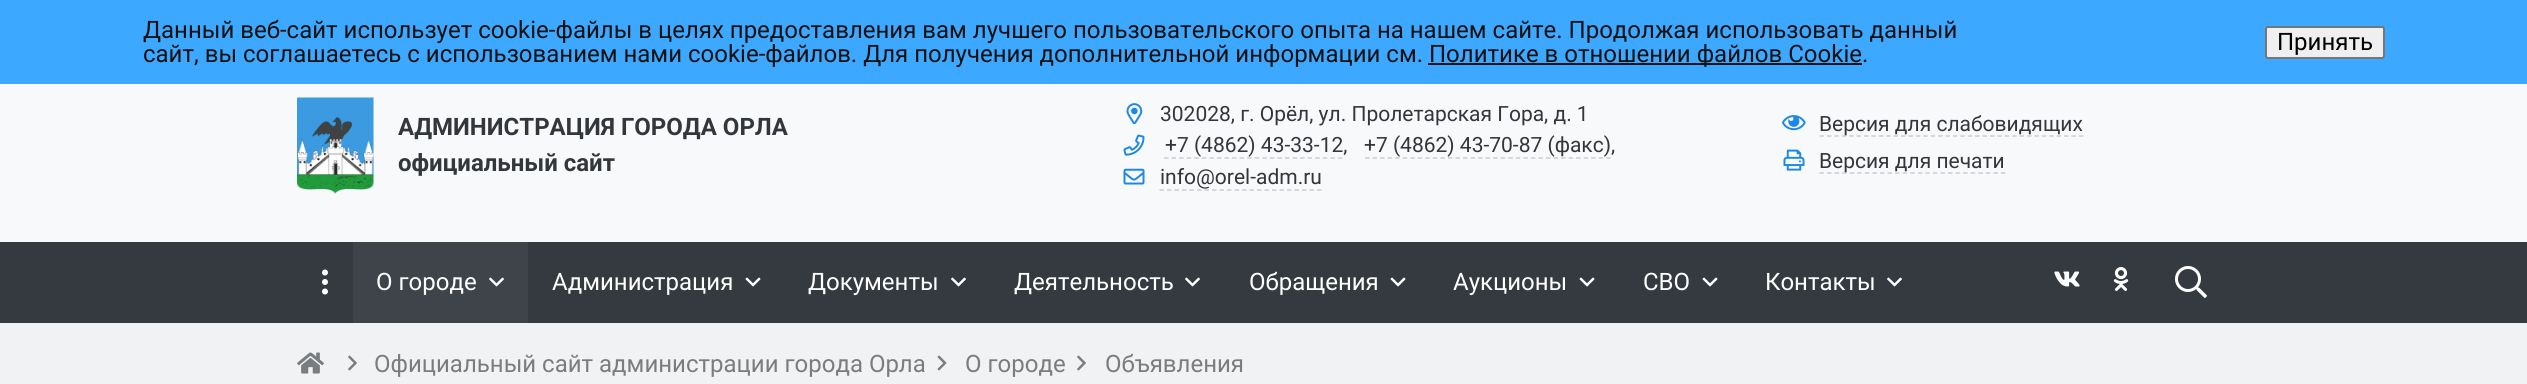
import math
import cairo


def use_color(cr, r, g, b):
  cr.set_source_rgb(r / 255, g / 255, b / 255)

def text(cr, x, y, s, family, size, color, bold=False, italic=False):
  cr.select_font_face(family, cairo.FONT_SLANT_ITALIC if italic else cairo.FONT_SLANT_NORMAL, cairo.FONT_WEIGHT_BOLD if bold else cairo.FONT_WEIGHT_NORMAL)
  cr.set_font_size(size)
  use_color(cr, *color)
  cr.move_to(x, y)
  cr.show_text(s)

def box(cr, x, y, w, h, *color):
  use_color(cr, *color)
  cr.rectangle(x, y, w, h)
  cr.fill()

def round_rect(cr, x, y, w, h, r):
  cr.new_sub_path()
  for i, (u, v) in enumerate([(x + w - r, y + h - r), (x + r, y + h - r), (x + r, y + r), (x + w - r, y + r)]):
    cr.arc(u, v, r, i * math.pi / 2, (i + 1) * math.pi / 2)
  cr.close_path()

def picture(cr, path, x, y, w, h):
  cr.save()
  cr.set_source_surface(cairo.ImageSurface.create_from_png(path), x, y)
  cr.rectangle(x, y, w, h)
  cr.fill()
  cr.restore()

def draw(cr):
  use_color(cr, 248, 249, 250)
  cr.paint()
  box(cr, 0, 0, 2527, 84, 61, 168, 255)
  box(cr, 1428, 63, 434, 2, 17, 17, 17)
  use_color(cr, 239, 239, 239)
  round_rect(cr, 2266, 27, 118, 31, 2)
  cr.fill_preserve()
  use_color(cr, 118, 118, 118)
  cr.stroke()
  picture(cr, "img_01.png", 297, 97, 77, 97)
  picture(cr, "img_02.png", 1126, 103, 17, 22)
  picture(cr, "img_03.png", 1123, 134, 22, 22)
  cr.new_path()
  cr.move_to(1164, 158)
  cr.line_to(1342.5, 158)
  use_color(cr, 203, 204, 206)
  cr.set_line_width(1.5)
  cr.set_dash([4.5, 3.06])
  cr.stroke()
  cr.new_path()
  cr.move_to(1365, 158)
  cr.line_to(1611, 158)
  cr.set_dash([4.5, 3.04])
  cr.stroke()
  picture(cr, "img_04.png", 1123, 168, 22, 17)
  cr.new_path()
  cr.move_to(1159.5, 190)
  cr.line_to(1321.5, 190)
  cr.set_dash([4.5, 3])
  cr.stroke()
  picture(cr, "img_05.png", 1782, 115, 24, 16)
  cr.new_path()
  cr.move_to(1819.5, 136)
  cr.line_to(2083.5, 136)
  cr.set_dash([4.5, 2.91])
  cr.stroke()
  picture(cr, "img_06.png", 1783, 149, 22, 22)
  cr.new_path()
  cr.move_to(1819.5, 173)
  cr.line_to(2005.5, 173)
  cr.set_dash([4.5, 3.06])
  cr.stroke()
  box(cr, 0, 242, 2527, 81, 52, 58, 64)
  box(cr, 353, 242, 175, 81, 62, 68, 74)
  picture(cr, "img_07.png", 322, 269, 6, 26)
  picture(cr, "img_08.png", 489, 277, 15, 10)
  picture(cr, "img_09.png", 745, 277, 16, 10)
  picture(cr, "img_10.png", 951, 277, 15, 10)
  picture(cr, "img_10.png", 1185, 277, 15, 10)
  picture(cr, "img_09.png", 1390, 277, 16, 10)
  picture(cr, "img_09.png", 1579, 277, 16, 10)
  picture(cr, "img_09.png", 1702, 277, 16, 10)
  picture(cr, "img_10.png", 1887, 277, 15, 10)
  picture(cr, "img_11.png", 2054, 271, 26, 16)
  picture(cr, "img_12.png", 2113, 267, 16, 24)
  picture(cr, "img_13.png", 2175, 266, 32, 32)
  box(cr, 0, 323, 2527, 61, 241, 242, 243)
  picture(cr, "img_14.png", 297, 352, 27, 22)
  picture(cr, "img_15.png", 348, 355, 9, 16)
  picture(cr, "img_16.png", 937, 355, 10, 16)
  picture(cr, "img_15.png", 1077, 355, 9, 16)
  text(cr, 143, 38, "Данный веб-сайт использует cookie-файлы в целях предоставления вам лучшего пользовательского опыта на нашем сайте. Продолжая использовать данный", "Roboto", 24, (17, 17, 17))
  text(cr, 143, 62, "сайт, вы соглашаетесь с использованием нами cookie-файлов. Для получения дополнительной информации см.", "Roboto", 24, (17, 17, 17))
  text(cr, 1429, 62, "Политике в отношении файлов Cookie.", "Roboto", 24, (17, 17, 17))
  text(cr, 2277, 50, "Принять", "Roboto", 24, (0, 0, 0))
  text(cr, 398, 135, "АДМИНИСТРАЦИЯ ГОРОДА ОРЛА", "Roboto", 24, (51, 54, 59), bold=True)
  text(cr, 398, 171, "официальный сайт", "Roboto", 24, (51, 54, 59), bold=True)
  text(cr, 1160, 121, "302028, г. Орёл, ул. Пролетарская Гора, д. 1", "Roboto", 21, (51, 54, 59))
  text(cr, 1165, 152, "+7 (4862) 43-33-12,", "Roboto", 21, (51, 54, 59))
  text(cr, 1364, 152, "+7 (4862) 43-70-87 (факс),", "Roboto", 21, (51, 54, 59))
  text(cr, 1160, 184, "info@orel-adm.ru", "Roboto", 21, (51, 54, 59))
  text(cr, 1819, 131, "Версия для слабовидящих", "Roboto", 21, (51, 54, 59))
  text(cr, 1819, 168, "Версия для печати", "Roboto", 21, (51, 54, 59))
  text(cr, 376, 290, "О городе", "Roboto", 24, (255, 255, 255))
  text(cr, 552, 290, "Администрация", "Roboto", 24, (255, 255, 255))
  text(cr, 808, 290, "Документы", "Roboto", 24, (255, 255, 255))
  text(cr, 1014, 290, "Деятельность", "Roboto", 24, (255, 255, 255))
  text(cr, 1249, 290, "Обращения", "Roboto", 24, (255, 255, 255))
  text(cr, 1453, 290, "Аукционы", "Roboto", 24, (255, 255, 255))
  text(cr, 1643, 290, "СВО", "Roboto", 24, (255, 255, 255))
  text(cr, 1765, 290, "Контакты", "Roboto", 24, (255, 255, 255))
  text(cr, 374, 372, "Официальный сайт администрации города Орла", "Roboto", 24, (122, 125, 128))
  text(cr, 965, 372, "О городе", "Roboto", 24, (122, 125, 128))
  text(cr, 1105, 372, "Объявления", "Roboto", 24, (122, 125, 128))


surface = cairo.ImageSurface(cairo.FORMAT_RGB24, 2527, 384)
cr = cairo.Context(surface)
options = cairo.FontOptions()
options.set_hint_metrics(cairo.HINT_METRICS_OFF)
options.set_hint_style(cairo.HINT_STYLE_NONE)
cr.set_font_options(options)
cr.set_miter_limit(4)
draw(cr)
surface.write_to_png("out.png")
